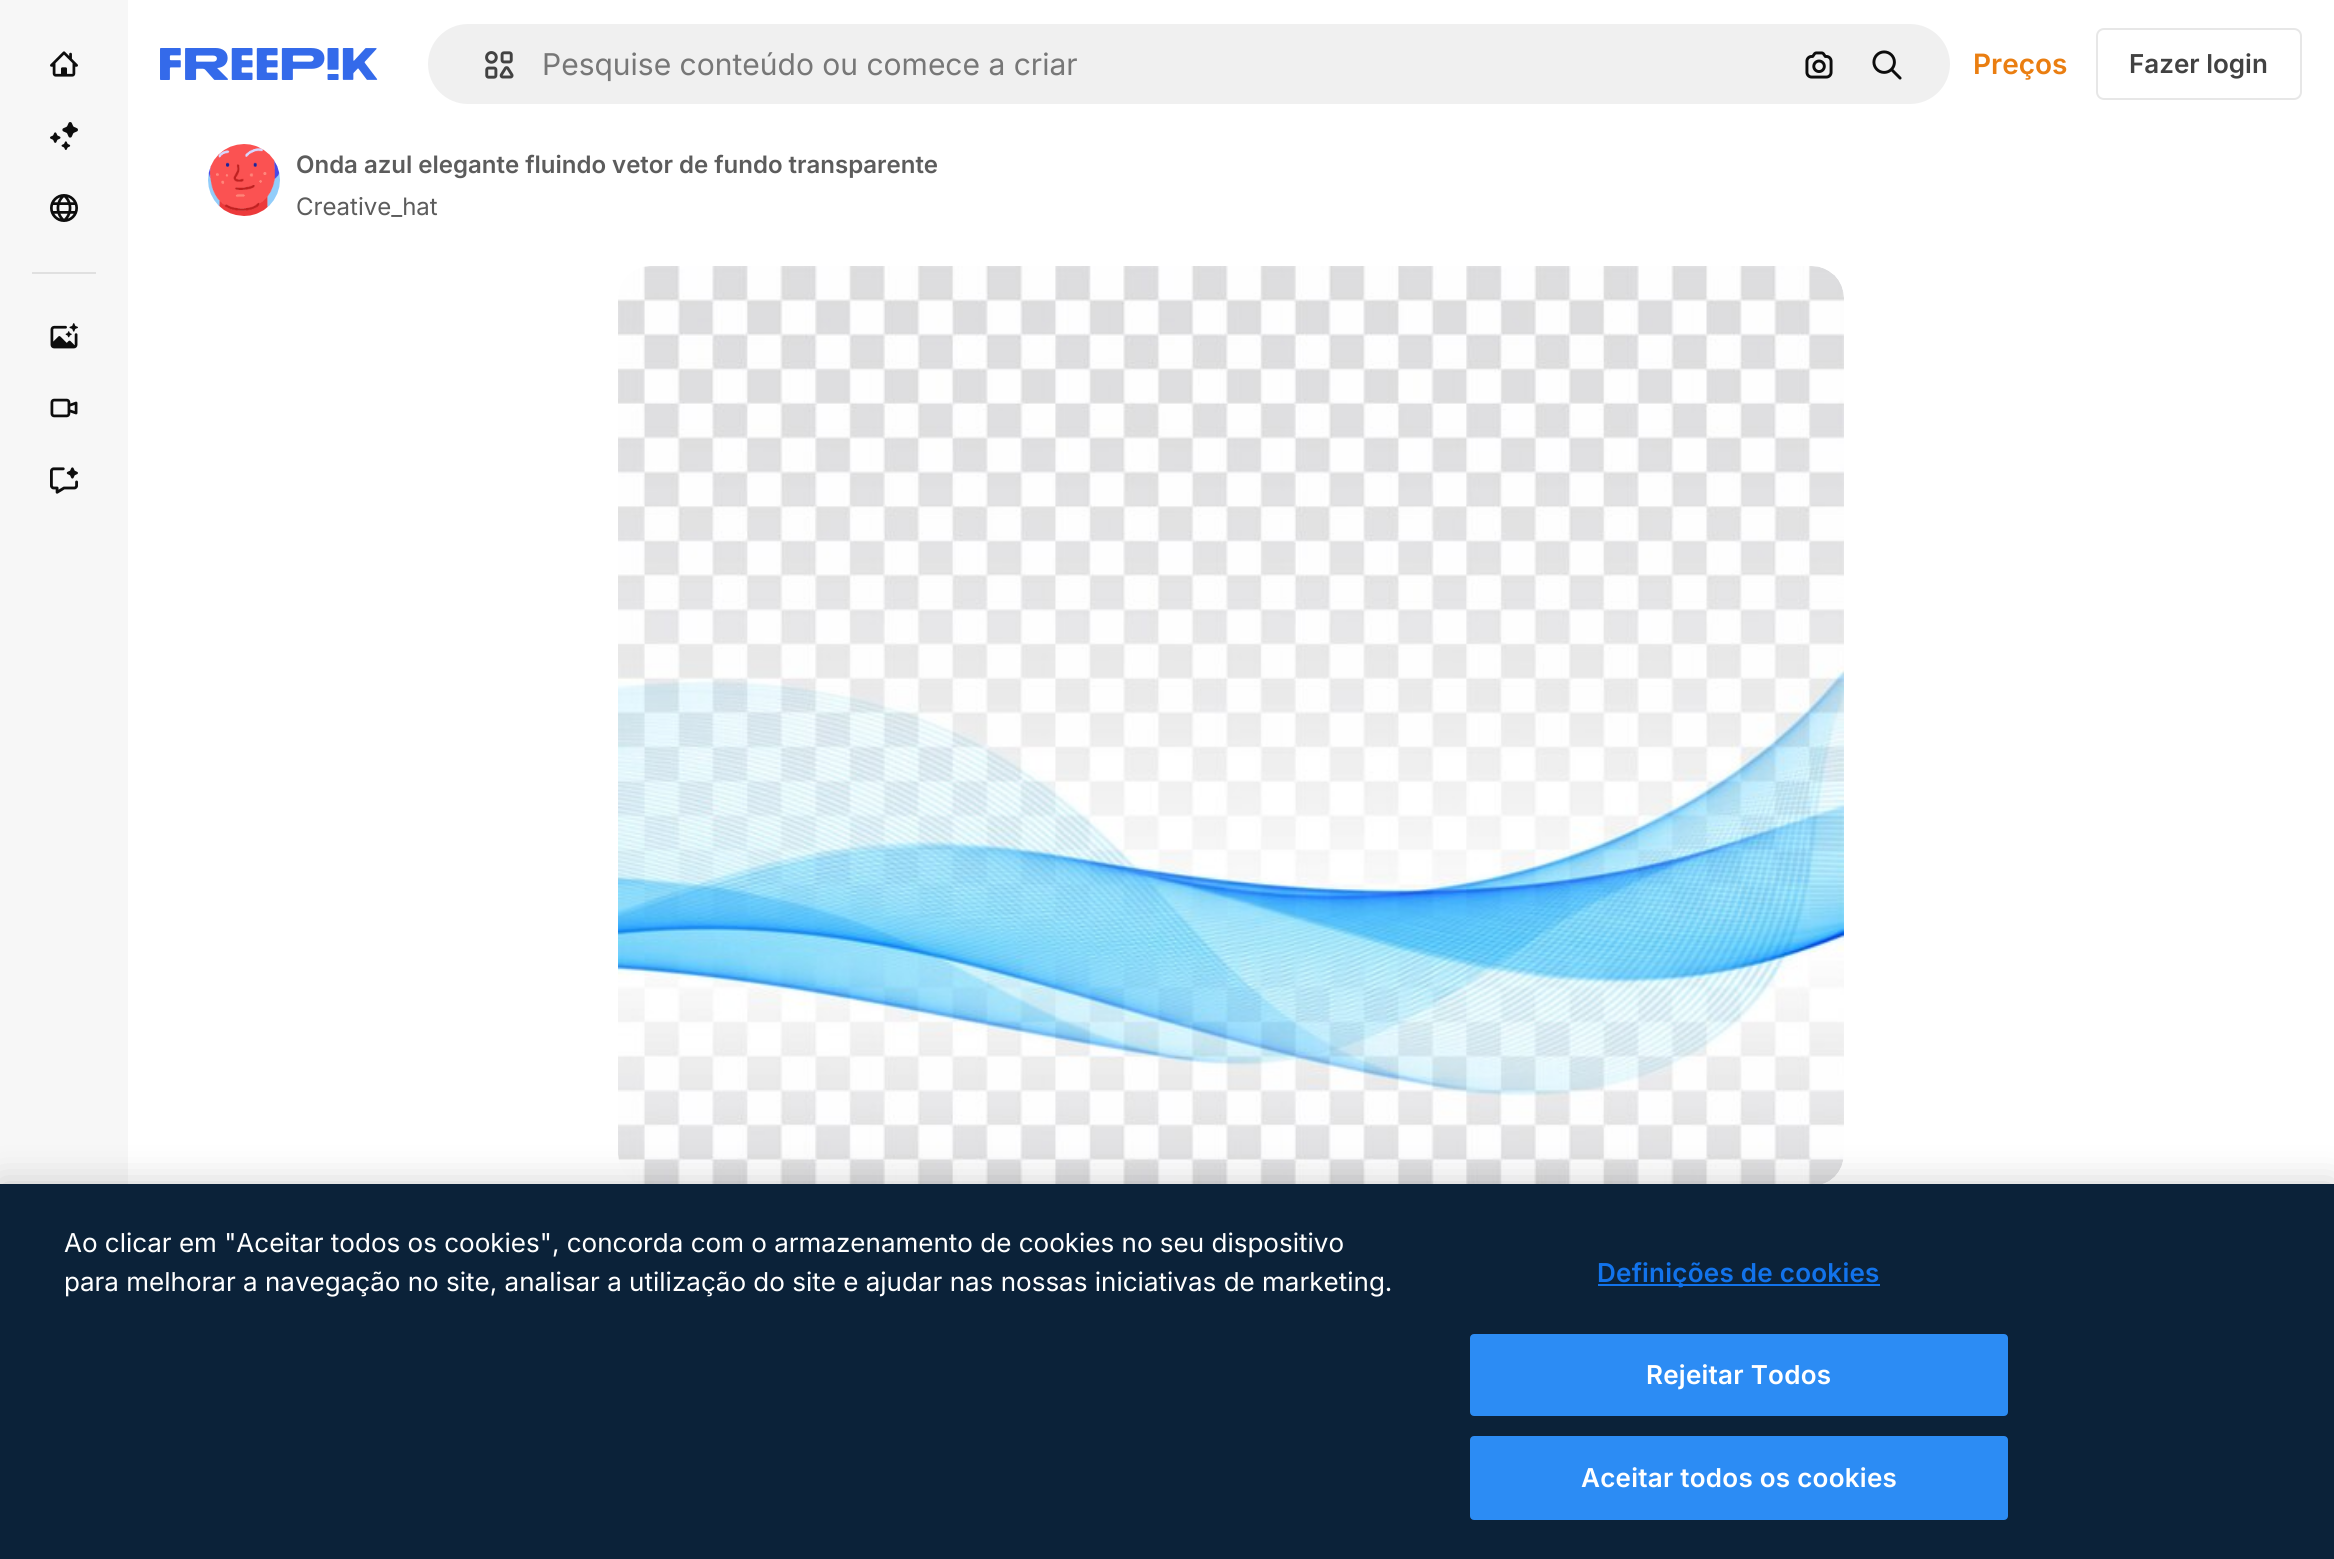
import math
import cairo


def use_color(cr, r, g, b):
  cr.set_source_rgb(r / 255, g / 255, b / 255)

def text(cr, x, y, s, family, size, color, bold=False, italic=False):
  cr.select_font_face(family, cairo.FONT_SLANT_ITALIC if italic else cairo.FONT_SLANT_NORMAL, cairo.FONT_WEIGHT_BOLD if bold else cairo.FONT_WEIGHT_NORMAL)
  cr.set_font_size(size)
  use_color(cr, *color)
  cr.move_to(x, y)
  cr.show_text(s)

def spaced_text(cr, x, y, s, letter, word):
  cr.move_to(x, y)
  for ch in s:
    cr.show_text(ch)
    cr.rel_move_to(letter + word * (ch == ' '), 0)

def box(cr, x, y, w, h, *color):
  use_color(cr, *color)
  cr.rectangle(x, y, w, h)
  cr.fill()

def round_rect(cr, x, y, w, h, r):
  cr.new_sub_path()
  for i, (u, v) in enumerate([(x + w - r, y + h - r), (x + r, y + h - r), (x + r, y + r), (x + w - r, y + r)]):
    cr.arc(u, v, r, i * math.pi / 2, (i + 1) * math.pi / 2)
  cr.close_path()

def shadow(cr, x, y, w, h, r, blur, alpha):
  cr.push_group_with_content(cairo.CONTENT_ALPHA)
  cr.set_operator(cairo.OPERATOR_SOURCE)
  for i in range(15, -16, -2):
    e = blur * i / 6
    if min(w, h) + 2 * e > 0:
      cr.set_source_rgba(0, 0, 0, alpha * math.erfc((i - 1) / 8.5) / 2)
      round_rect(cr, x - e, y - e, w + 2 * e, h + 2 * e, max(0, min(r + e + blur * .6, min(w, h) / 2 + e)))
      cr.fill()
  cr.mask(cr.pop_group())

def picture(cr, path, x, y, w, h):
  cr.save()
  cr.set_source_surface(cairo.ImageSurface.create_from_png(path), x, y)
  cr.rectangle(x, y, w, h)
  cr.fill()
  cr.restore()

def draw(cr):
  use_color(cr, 255, 255, 255)
  cr.paint()
  box(cr, 0, 0, 128, 1184, 247, 247, 247)
  picture(cr, "img_01.png", 50, 51, 28, 26)
  picture(cr, "img_02.png", 50, 122, 28, 28)
  picture(cr, "img_03.png", 50, 194, 28, 28)
  box(cr, 32, 272, 64, 2, 224, 224, 224)
  picture(cr, "img_04.png", 50, 323, 28, 26)
  picture(cr, "img_05.png", 50, 398, 28, 20)
  picture(cr, "img_06.png", 50, 467, 28, 27)
  picture(cr, "img_07.png", 160, 48, 218, 32)
  use_color(cr, 240, 240, 240)
  round_rect(cr, 427, 23, 1524, 82, 41)
  cr.fill_preserve()
  use_color(cr, 255, 255, 255)
  cr.stroke()
  picture(cr, "img_08.png", 485, 51, 29, 28)
  picture(cr, "img_09.png", 1805, 51, 28, 28)
  picture(cr, "img_10.png", 1872, 50, 30, 30)
  round_rect(cr, 2097, 29, 204, 70, 7)
  use_color(cr, 231, 231, 231)
  cr.stroke()
  picture(cr, "img_11.png", 208, 144, 72, 72)
  picture(cr, "img_12.png", 618, 266, 1226, 918)
  use_color(cr, 0, 0, 0)
  shadow(cr, 0, 1184, 2334, 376, 0, 18, 0.2)
  box(cr, 0, 1184, 2334, 375, 11, 34, 57)
  box(cr, 1598, 1284, 282, 2, 18, 115, 235)
  use_color(cr, 44, 140, 244)
  round_rect(cr, 1471, 1335, 536, 80, 3)
  cr.fill_preserve()
  cr.stroke()
  round_rect(cr, 1471, 1437, 536, 82, 3)
  cr.fill_preserve()
  cr.stroke()
  text(cr, 542, 75, "Pesquise conteúdo ou comece a criar", "Inter", 30, (119, 119, 119))
  text(cr, 1973, 74, "Preços", "Inter SemiBold", 28, (234, 126, 17))
  text(cr, 2129, 73, "Fazer login", "Inter SemiBold", 26, (66, 66, 66))
  text(cr, 296, 173, "Onda azul elegante fluindo vetor de fundo transparente", "Inter SemiBold", 24, (92, 92, 92))
  text(cr, 296, 215, "Creative_hat", "Inter", 24, (92, 92, 92))
  text(cr, 64, 1252, "Ao clicar em \"Aceitar todos os cookies\", concorda com o armazenamento de cookies no seu dispositivo", "Inter", 26.02, (255, 255, 255))
  text(cr, 64, 1291, "para melhorar a navegação no site, analisar a utilização do site e ajudar nas nossas iniciativas de marketing.", "Inter", 26.02, (255, 255, 255))
  cr.select_font_face("Inter SemiBold")
  use_color(cr, 18, 115, 235)
  spaced_text(cr, 1597, 1282, "Definições de cookies", 0.25, 0)
  use_color(cr, 255, 255, 255)
  spaced_text(cr, 1646, 1384, "Rejeitar Todos", 0.25, 0)
  spaced_text(cr, 1581, 1487, "Aceitar todos os cookies", 0.25, 0)


surface = cairo.ImageSurface(cairo.FORMAT_RGB24, 2334, 1559)
cr = cairo.Context(surface)
options = cairo.FontOptions()
options.set_hint_metrics(cairo.HINT_METRICS_OFF)
options.set_hint_style(cairo.HINT_STYLE_NONE)
cr.set_font_options(options)
cr.set_miter_limit(4)
draw(cr)
surface.write_to_png("out.png")
